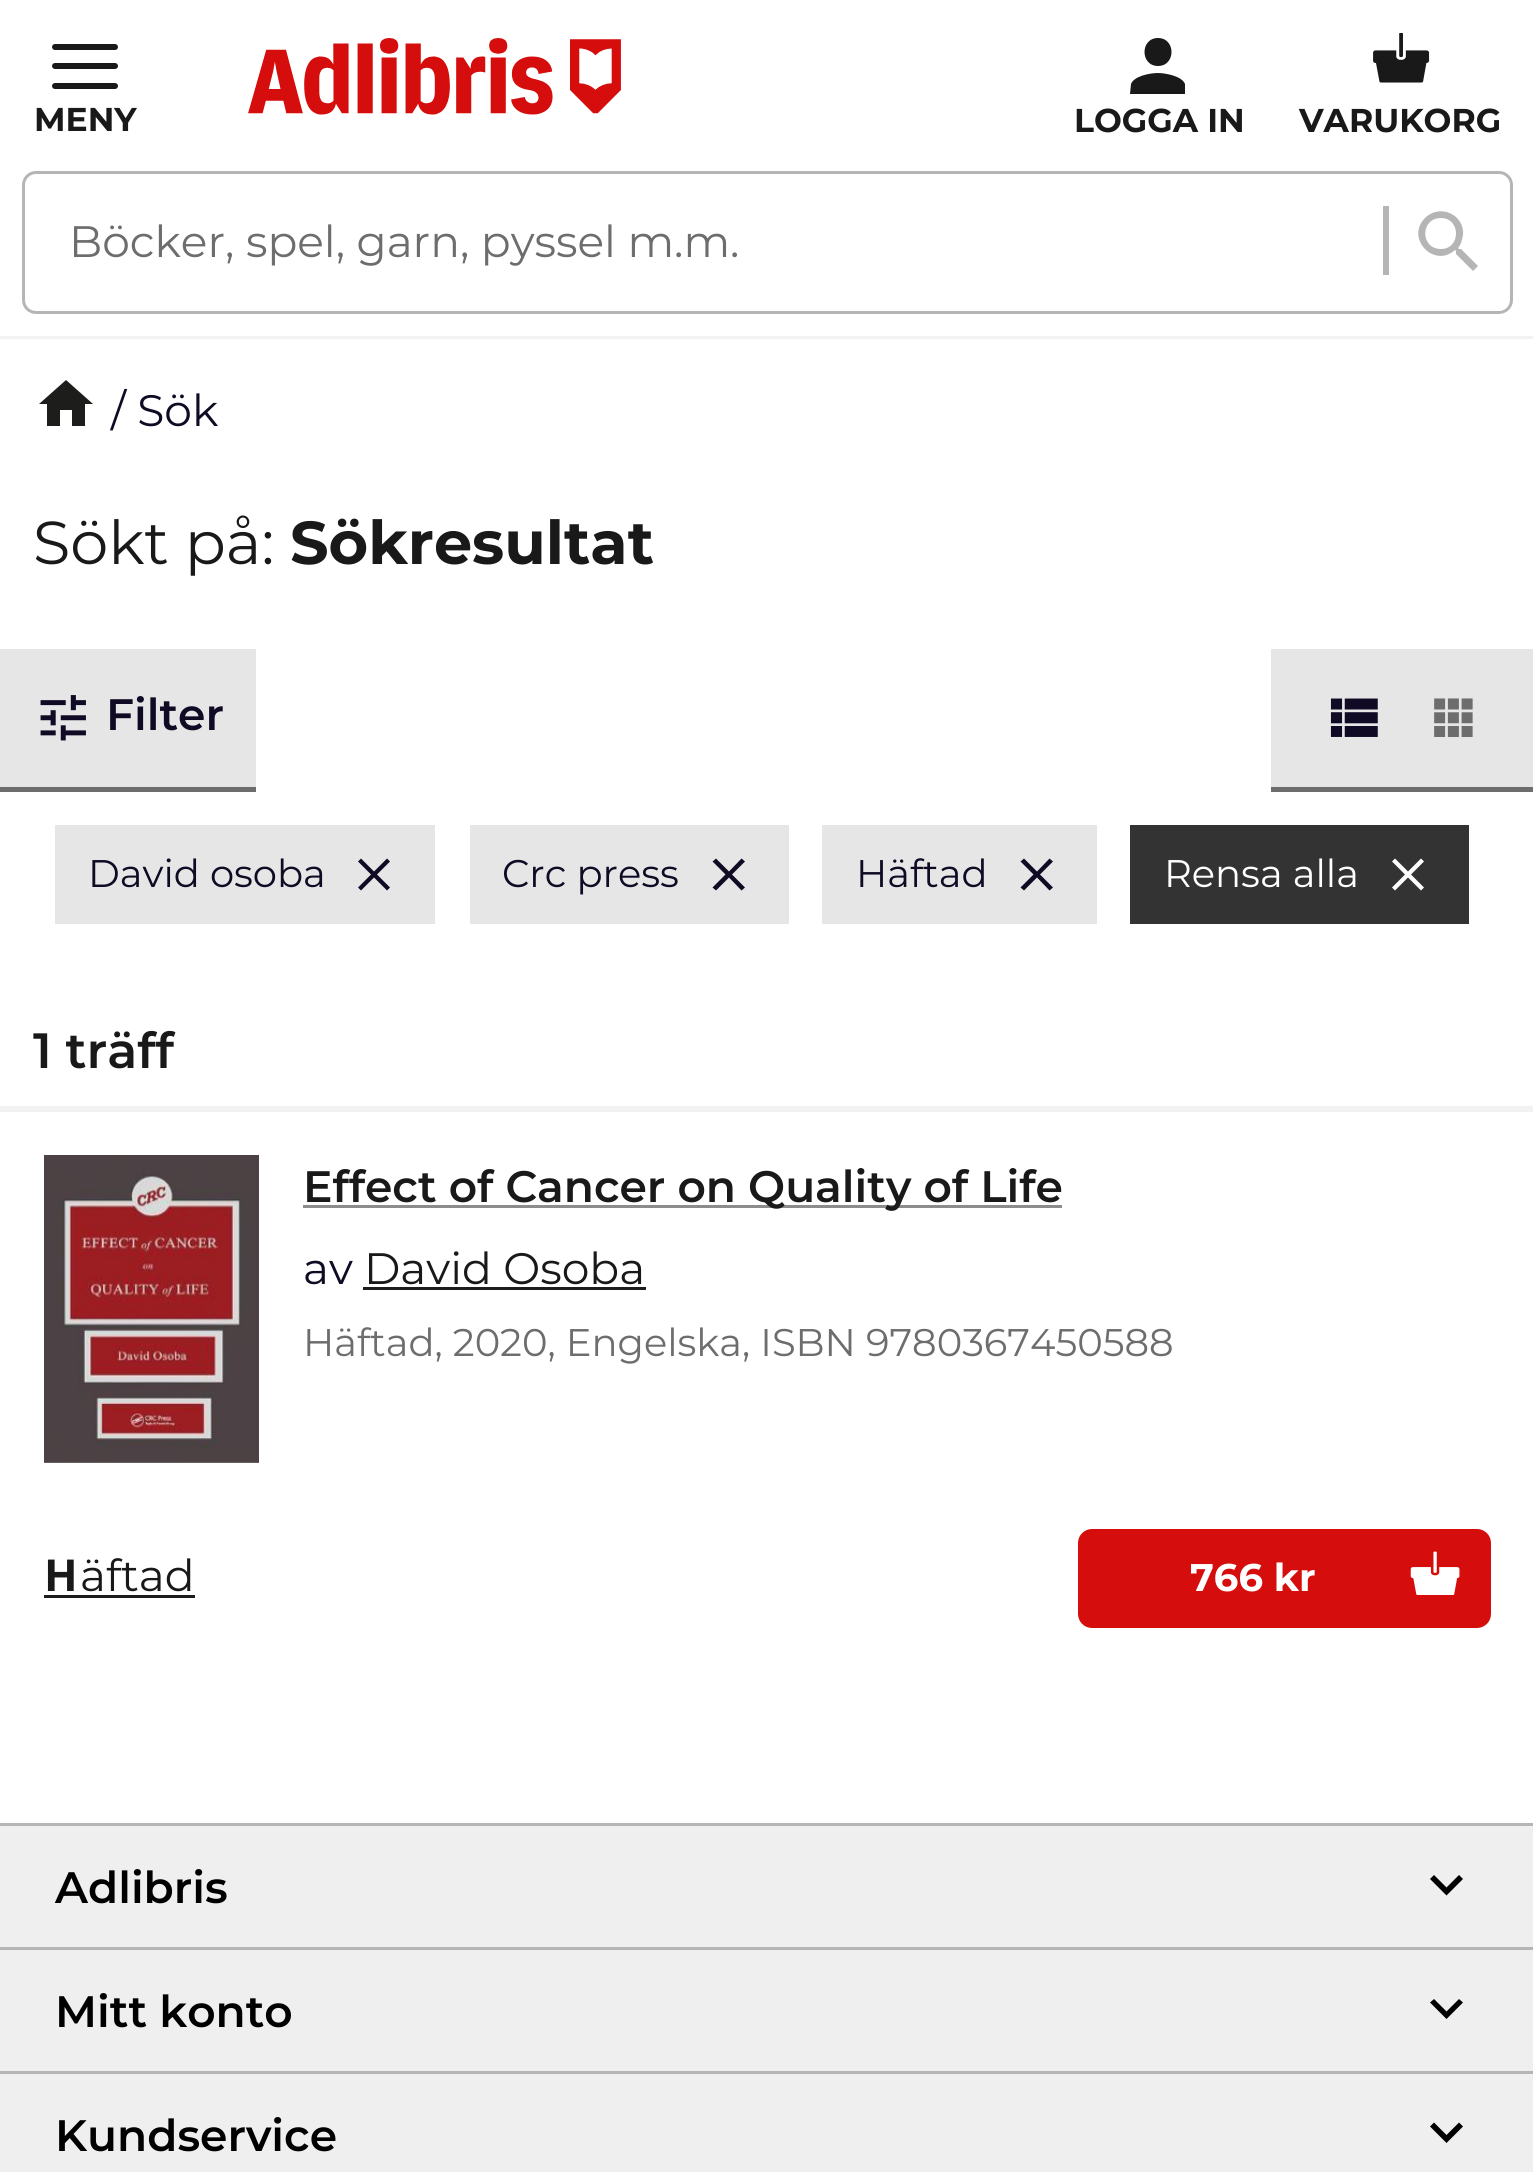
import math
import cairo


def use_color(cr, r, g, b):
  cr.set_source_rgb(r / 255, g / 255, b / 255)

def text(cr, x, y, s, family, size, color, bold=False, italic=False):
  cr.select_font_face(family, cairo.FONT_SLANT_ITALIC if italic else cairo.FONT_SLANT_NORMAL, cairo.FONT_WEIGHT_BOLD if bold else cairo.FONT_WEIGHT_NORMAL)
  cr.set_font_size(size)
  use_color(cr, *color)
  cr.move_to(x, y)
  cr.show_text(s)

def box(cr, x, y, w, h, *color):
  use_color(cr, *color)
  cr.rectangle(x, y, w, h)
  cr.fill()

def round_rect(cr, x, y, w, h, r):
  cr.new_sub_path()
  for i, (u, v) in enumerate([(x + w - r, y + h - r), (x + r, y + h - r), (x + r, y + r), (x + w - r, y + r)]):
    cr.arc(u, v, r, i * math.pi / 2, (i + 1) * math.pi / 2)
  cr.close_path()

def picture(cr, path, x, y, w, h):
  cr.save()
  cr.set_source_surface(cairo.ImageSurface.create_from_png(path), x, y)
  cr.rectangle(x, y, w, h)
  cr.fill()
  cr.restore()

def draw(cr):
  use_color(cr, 255, 255, 255)
  cr.paint()
  box(cr, 0, 336, 1533, 3, 242, 242, 242)
  picture(cr, "img_01.png", 248, 38, 373, 77)
  use_color(cr, 25, 25, 25)
  round_rect(cr, 52, 44, 66, 6, 3)
  cr.fill()
  round_rect(cr, 52, 63, 66, 6, 3)
  cr.fill()
  round_rect(cr, 52, 83, 66, 6, 3)
  cr.fill()
  cr.new_path()
  cr.move_to(1158, 73)
  cr.curve_to(1165, 73, 1182, 76, 1185, 84)
  cr.line_to(1185, 94)
  cr.line_to(1130, 94)
  cr.line_to(1131, 84)
  cr.curve_to(1134, 76, 1150, 73, 1158, 73)
  cr.close_path()
  cr.move_to(1158, 66)
  cr.curve_to(1140, 66, 1140, 38, 1158, 38)
  cr.curve_to(1176, 38, 1176, 66, 1158, 66)
  cr.close_path()
  cr.fill()
  picture(cr, "img_02.png", 1373, 33, 57, 50)
  round_rect(cr, 23.5, 172.5, 1488, 140, 12.5)
  use_color(cr, 181, 181, 181)
  cr.set_line_width(3)
  cr.stroke()
  box(cr, 1383, 206, 6, 69, 181, 181, 181)
  cr.new_path()
  cr.move_to(1441, 249)
  cr.curve_to(1461, 249, 1461, 218, 1441, 218)
  cr.curve_to(1420, 218, 1420, 249, 1441, 249)
  cr.close_path()
  cr.move_to(1461, 249)
  cr.line_to(1478, 266)
  cr.line_to(1473, 271)
  cr.line_to(1456, 254)
  cr.line_to(1456, 251)
  cr.line_to(1455, 250)
  cr.curve_to(1434, 269, 1405, 238, 1425, 218)
  cr.curve_to(1440, 203, 1465, 215, 1463, 235)
  cr.curve_to(1462, 240, 1461, 245, 1458, 248)
  cr.line_to(1459, 249)
  cr.close_path()
  cr.fill()
  use_color(cr, 29, 29, 27)
  cr.new_path()
  cr.move_to(60, 426)
  cr.line_to(47, 426)
  cr.line_to(47, 404)
  cr.line_to(39, 404)
  cr.line_to(66, 380)
  cr.line_to(93, 404)
  cr.line_to(85, 404)
  cr.line_to(85, 426)
  cr.line_to(72, 426)
  cr.line_to(72, 410)
  cr.line_to(60, 410)
  cr.close_path()
  cr.fill()
  use_color(cr, 109, 109, 109)
  cr.new_path()
  cr.move_to(0, 786)
  cr.line_to(0, 792)
  cr.line_to(256, 792)
  cr.line_to(256, 655)
  cr.line_to(256, 786)
  cr.close_path()
  cr.fill()
  box(cr, 0, 649, 256, 138, 230, 230, 230)
  picture(cr, "img_03.png", 40, 695, 46, 46)
  use_color(cr, 109, 109, 109)
  cr.new_path()
  cr.move_to(1271, 786)
  cr.line_to(1271, 792)
  cr.line_to(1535, 792)
  cr.line_to(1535, 655)
  cr.line_to(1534, 655)
  cr.line_to(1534, 786)
  cr.close_path()
  cr.fill()
  box(cr, 1271, 649, 262, 138, 230, 230, 230)
  picture(cr, "img_04.png", 1330, 698, 48, 39)
  picture(cr, "img_05.png", 1434, 698, 39, 39)
  box(cr, 55, 825, 380, 99, 230, 230, 230)
  use_color(cr, 16, 10, 36)
  cr.new_path()
  cr.move_to(390, 861.5)
  cr.line_to(377, 874.5)
  cr.line_to(390, 887.5)
  cr.line_to(387, 890.5)
  cr.line_to(374, 877.5)
  cr.line_to(361, 890.5)
  cr.line_to(358, 887.5)
  cr.line_to(371, 874.5)
  cr.line_to(358, 861.5)
  cr.line_to(361, 858.5)
  cr.line_to(374, 871.5)
  cr.line_to(387, 858.5)
  cr.close_path()
  cr.fill()
  box(cr, 470, 825, 319, 99, 230, 230, 230)
  use_color(cr, 16, 10, 36)
  cr.new_path()
  cr.move_to(745, 861.5)
  cr.line_to(732, 874.5)
  cr.line_to(745, 887.5)
  cr.line_to(741.5, 890.5)
  cr.line_to(729, 877.5)
  cr.line_to(716, 890.5)
  cr.line_to(712.5, 887.5)
  cr.line_to(725.5, 874.5)
  cr.line_to(712.5, 861.5)
  cr.line_to(716, 858.5)
  cr.line_to(729, 871.5)
  cr.line_to(741.5, 858.5)
  cr.close_path()
  cr.fill()
  box(cr, 822, 825, 275, 99, 230, 230, 230)
  use_color(cr, 16, 10, 36)
  cr.new_path()
  cr.move_to(1053, 861.5)
  cr.line_to(1040, 874.5)
  cr.line_to(1053, 887.5)
  cr.line_to(1049.5, 890.5)
  cr.line_to(1037, 877.5)
  cr.line_to(1024, 890.5)
  cr.line_to(1020.5, 887.5)
  cr.line_to(1033.5, 874.5)
  cr.line_to(1020.5, 861.5)
  cr.line_to(1024, 858.5)
  cr.line_to(1037, 871.5)
  cr.line_to(1049.5, 858.5)
  cr.close_path()
  cr.fill()
  box(cr, 1130, 825, 339, 99, 51, 51, 51)
  use_color(cr, 255, 255, 255)
  cr.new_path()
  cr.move_to(1424, 861.5)
  cr.line_to(1411, 874.5)
  cr.line_to(1424, 887.5)
  cr.line_to(1421, 890.5)
  cr.line_to(1408, 877.5)
  cr.line_to(1395, 890.5)
  cr.line_to(1392, 887.5)
  cr.line_to(1405, 874.5)
  cr.line_to(1392, 861.5)
  cr.line_to(1395, 858.5)
  cr.line_to(1408, 871.5)
  cr.line_to(1421, 858.5)
  cr.close_path()
  cr.fill()
  box(cr, 0, 1106, 1533, 6, 242, 242, 242)
  picture(cr, "img_06.png", 44, 1155, 215, 308)
  box(cr, 303, 1205, 759, 3, 140, 140, 140)
  box(cr, 363, 1287, 283, 3, 29, 29, 27)
  box(cr, 44, 1595, 151, 3, 29, 29, 27)
  use_color(cr, 214, 13, 13)
  round_rect(cr, 1078, 1529, 413, 99, 14)
  cr.fill()
  picture(cr, "img_07.png", 1410, 1551, 50, 44)
  box(cr, 0, 1823, 1533, 3, 181, 181, 181)
  box(cr, 0, 1947, 1533, 3, 181, 181, 181)
  box(cr, 0, 1826, 1533, 121, 239, 239, 239)
  use_color(cr, 0, 0, 0)
  cr.new_path()
  cr.move_to(1434, 1875)
  cr.line_to(1446.5, 1887.5)
  cr.line_to(1459, 1875)
  cr.line_to(1463, 1879)
  cr.line_to(1446.5, 1895.5)
  cr.line_to(1430, 1879)
  cr.close_path()
  cr.fill()
  box(cr, 0, 2071, 1533, 3, 181, 181, 181)
  box(cr, 0, 1950, 1533, 121, 239, 239, 239)
  use_color(cr, 0, 0, 0)
  cr.new_path()
  cr.move_to(1434, 1999)
  cr.line_to(1446.5, 2011.5)
  cr.line_to(1459, 1999)
  cr.line_to(1463, 2002.5)
  cr.line_to(1446.5, 2019)
  cr.line_to(1430, 2002.5)
  cr.close_path()
  cr.fill()
  box(cr, 0, 2074, 1533, 98, 239, 239, 239)
  use_color(cr, 0, 0, 0)
  cr.new_path()
  cr.move_to(1434, 2122.5)
  cr.line_to(1446.5, 2135)
  cr.line_to(1459, 2122.5)
  cr.line_to(1463, 2126.5)
  cr.line_to(1446.5, 2143)
  cr.line_to(1430, 2126.5)
  cr.close_path()
  cr.fill()
  text(cr, 34, 131, "MENY", "Montserrat", 33, (25, 25, 25), bold=True)
  text(cr, 1074, 132, "LOGGA IN", "Montserrat", 33, (25, 25, 25), bold=True)
  text(cr, 1299, 132, "VARUKORG", "Montserrat", 33, (25, 25, 25), bold=True)
  text(cr, 69, 257, "Böcker, spel, garn, pyssel m.m.", "Montserrat", 44, (109, 109, 109))
  text(cr, 111, 426, "/ Sök", "Montserrat", 44, (16, 10, 36))
  text(cr, 33, 564, "Sökt på:", "Montserrat", 60.5, (25, 25, 25))
  text(cr, 290, 564, "Sökresultat", "Montserrat", 60.5, (25, 25, 25), bold=True)
  text(cr, 106, 730, "Filter", "Montserrat SemiBold", 44, (16, 10, 36))
  text(cr, 88, 887, "David osoba", "Montserrat", 38.5, (16, 10, 36))
  text(cr, 502, 887, "Crc press", "Montserrat", 38.5, (16, 10, 36))
  text(cr, 856, 887, "Häftad", "Montserrat", 38.5, (16, 10, 36))
  text(cr, 1164, 887, "Rensa alla", "Montserrat", 38.5, (255, 255, 255))
  text(cr, 33, 1068, "1 träff", "Montserrat SemiBold", 49.5, (25, 25, 25))
  text(cr, 303, 1202, "Effect of Cancer on Quality of Life", "Montserrat SemiBold", 44, (25, 25, 25))
  text(cr, 303, 1284, "av", "Montserrat", 44, (16, 10, 36))
  text(cr, 364, 1284, "David Osoba", "Montserrat", 44, (25, 25, 25))
  text(cr, 303, 1356, "Häftad, 2020, Engelska, ISBN 9780367450588", "Montserrat", 38.5, (109, 109, 109))
  text(cr, 44, 1591, "H", "Noto Sans", 44, (25, 25, 25), bold=True)
  text(cr, 80, 1591, "äftad", "Montserrat", 44, (25, 25, 25))
  text(cr, 1190, 1591, "766 kr", "Montserrat", 38.5, (255, 255, 255), bold=True)
  text(cr, 55, 1903, "Adlibris", "Montserrat SemiBold", 44, (0, 0, 0))
  text(cr, 55, 2027, "Mitt konto", "Montserrat SemiBold", 44, (0, 0, 0))
  text(cr, 55, 2151, "Kundservice", "Montserrat SemiBold", 44, (0, 0, 0))


surface = cairo.ImageSurface(cairo.FORMAT_RGB24, 1533, 2172)
cr = cairo.Context(surface)
options = cairo.FontOptions()
options.set_hint_metrics(cairo.HINT_METRICS_OFF)
options.set_hint_style(cairo.HINT_STYLE_NONE)
cr.set_font_options(options)
cr.set_miter_limit(4)
draw(cr)
surface.write_to_png("out.png")
